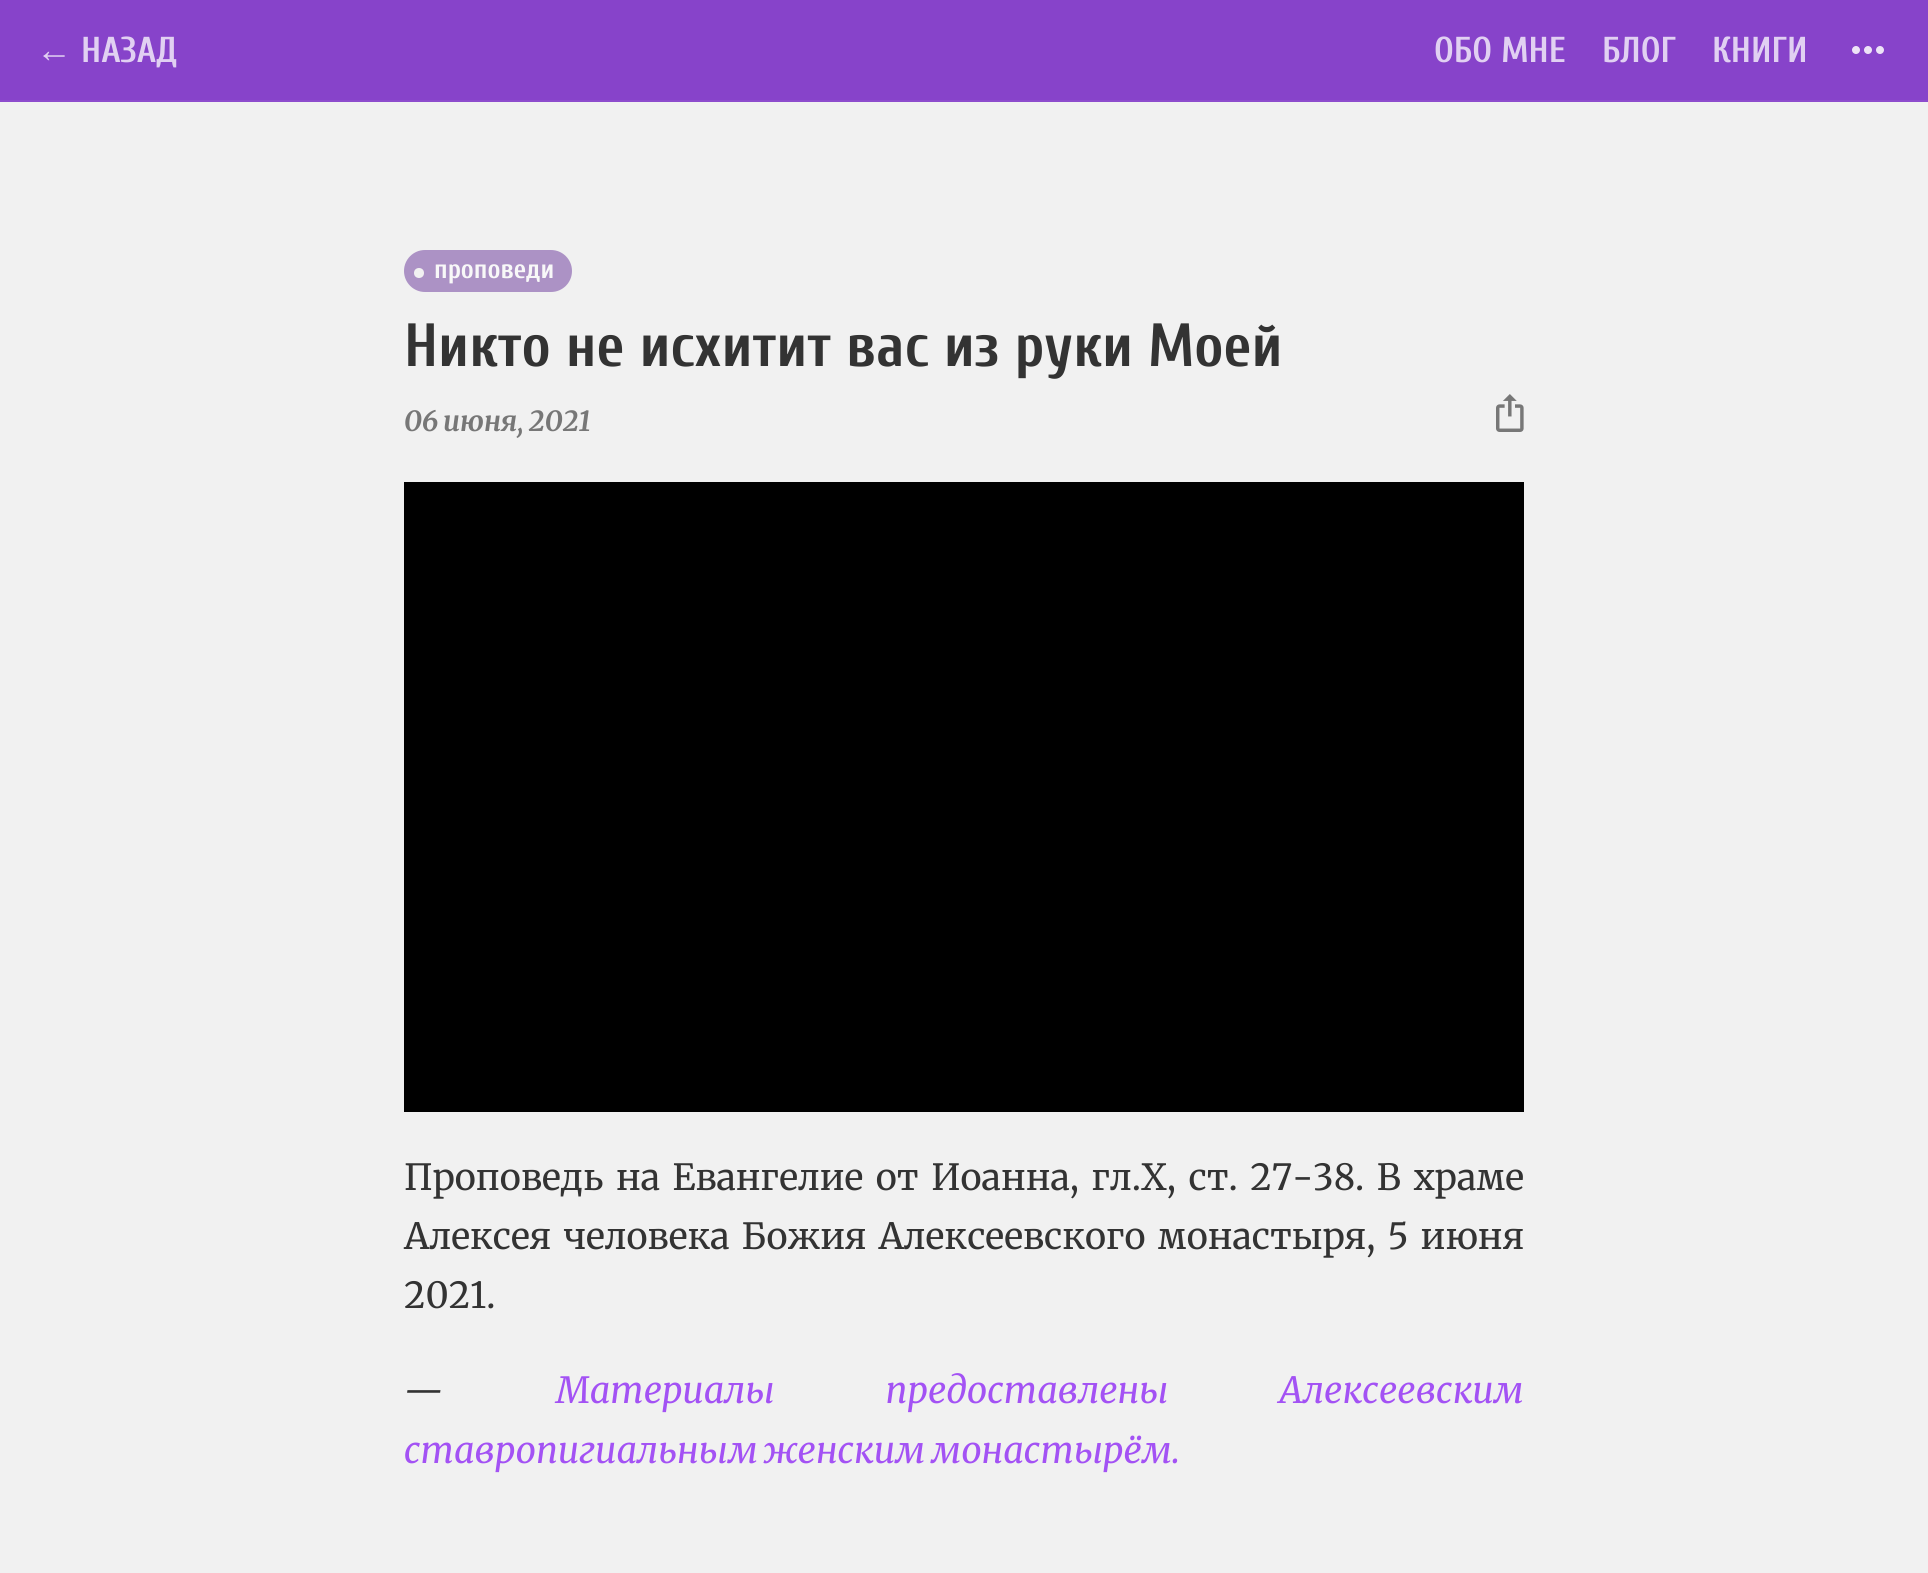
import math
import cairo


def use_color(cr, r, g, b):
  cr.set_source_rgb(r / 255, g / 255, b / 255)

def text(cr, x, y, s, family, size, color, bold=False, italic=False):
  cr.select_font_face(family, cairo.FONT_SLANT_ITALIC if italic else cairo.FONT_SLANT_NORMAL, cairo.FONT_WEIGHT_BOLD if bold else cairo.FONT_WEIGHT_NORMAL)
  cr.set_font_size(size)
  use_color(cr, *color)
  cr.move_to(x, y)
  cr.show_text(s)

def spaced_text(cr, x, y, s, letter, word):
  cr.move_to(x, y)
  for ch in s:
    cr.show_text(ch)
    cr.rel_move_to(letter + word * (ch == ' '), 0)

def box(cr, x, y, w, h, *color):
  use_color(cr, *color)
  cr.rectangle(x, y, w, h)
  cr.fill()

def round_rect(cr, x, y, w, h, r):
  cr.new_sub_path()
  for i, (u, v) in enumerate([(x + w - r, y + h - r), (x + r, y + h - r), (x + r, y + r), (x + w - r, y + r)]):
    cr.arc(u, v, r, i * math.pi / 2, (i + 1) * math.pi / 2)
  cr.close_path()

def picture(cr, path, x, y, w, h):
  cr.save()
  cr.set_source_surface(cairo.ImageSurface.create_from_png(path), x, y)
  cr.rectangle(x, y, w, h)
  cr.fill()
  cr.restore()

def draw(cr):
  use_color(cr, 241, 241, 241)
  cr.paint()
  box(cr, 0, 0, 1928, 100, 135, 67, 202)
  box(cr, 0, 100, 1928, 2, 141, 76, 205)
  picture(cr, "img_01.png", 1852, 46, 32, 8)
  use_color(cr, 172, 146, 197)
  round_rect(cr, 404, 250, 168, 42, 21)
  cr.fill()
  use_color(cr, 241, 241, 241)
  cr.arc(419, 273, 5, 0, 2 * math.pi)
  cr.fill()
  picture(cr, "img_02.png", 1496, 394, 28, 38)
  box(cr, 404, 482, 1120, 630, 0, 0, 0)
  text(cr, 36, 62, "←", "Liberation Sans", 36, (225, 208, 242))
  text(cr, 81, 62, "НАЗАД", "Cuprum", 36, (225, 208, 242), bold=True)
  text(cr, 1434, 62, "ОБО МНЕ", "Cuprum", 36, (225, 208, 242), bold=True)
  text(cr, 1602, 62, "БЛОГ", "Cuprum", 36, (225, 208, 242), bold=True)
  text(cr, 1712, 62, "КНИГИ", "Cuprum", 36, (225, 208, 242), bold=True)
  text(cr, 434, 278, "проповеди", "Cuprum", 27, (248, 248, 248), bold=True)
  cr.set_font_size(60.9)
  use_color(cr, 51, 51, 51)
  spaced_text(cr, 404, 366, "Никто не исхитит вас из руки Моей", 0, -0.25)
  cr.select_font_face("Merriweather", cairo.FONT_SLANT_ITALIC, cairo.FONT_WEIGHT_BOLD)
  cr.set_font_size(27.75)
  use_color(cr, 119, 119, 119)
  spaced_text(cr, 404, 431, "06 июня, 2021", 0, -1)
  cr.select_font_face("Merriweather")
  cr.set_font_size(36)
  use_color(cr, 51, 51, 51)
  spaced_text(cr, 404, 1190, "Проповедь на Евангелие от Иоанна, гл.X, ст. 27-38. В храме", 0, 4)
  spaced_text(cr, 404, 1249, "Алексея человека Божия Алексеевского монастыря, 5 июня", 0, 3.5)
  text(cr, 404, 1308, "2021.", "Merriweather", 36, (51, 51, 51))
  text(cr, 404, 1403, "—", "Merriweather", 36, (51, 51, 51), italic=True)
  use_color(cr, 163, 82, 244)
  spaced_text(cr, 556, 1403, "Материалы предоставлены Алексеевским", 0, 103)
  spaced_text(cr, 404, 1463, "ставропигиальным женским монастырём.", 0, -2)


surface = cairo.ImageSurface(cairo.FORMAT_RGB24, 1928, 1573)
cr = cairo.Context(surface)
options = cairo.FontOptions()
options.set_hint_metrics(cairo.HINT_METRICS_OFF)
options.set_hint_style(cairo.HINT_STYLE_NONE)
cr.set_font_options(options)
cr.set_miter_limit(4)
draw(cr)
surface.write_to_png("out.png")
